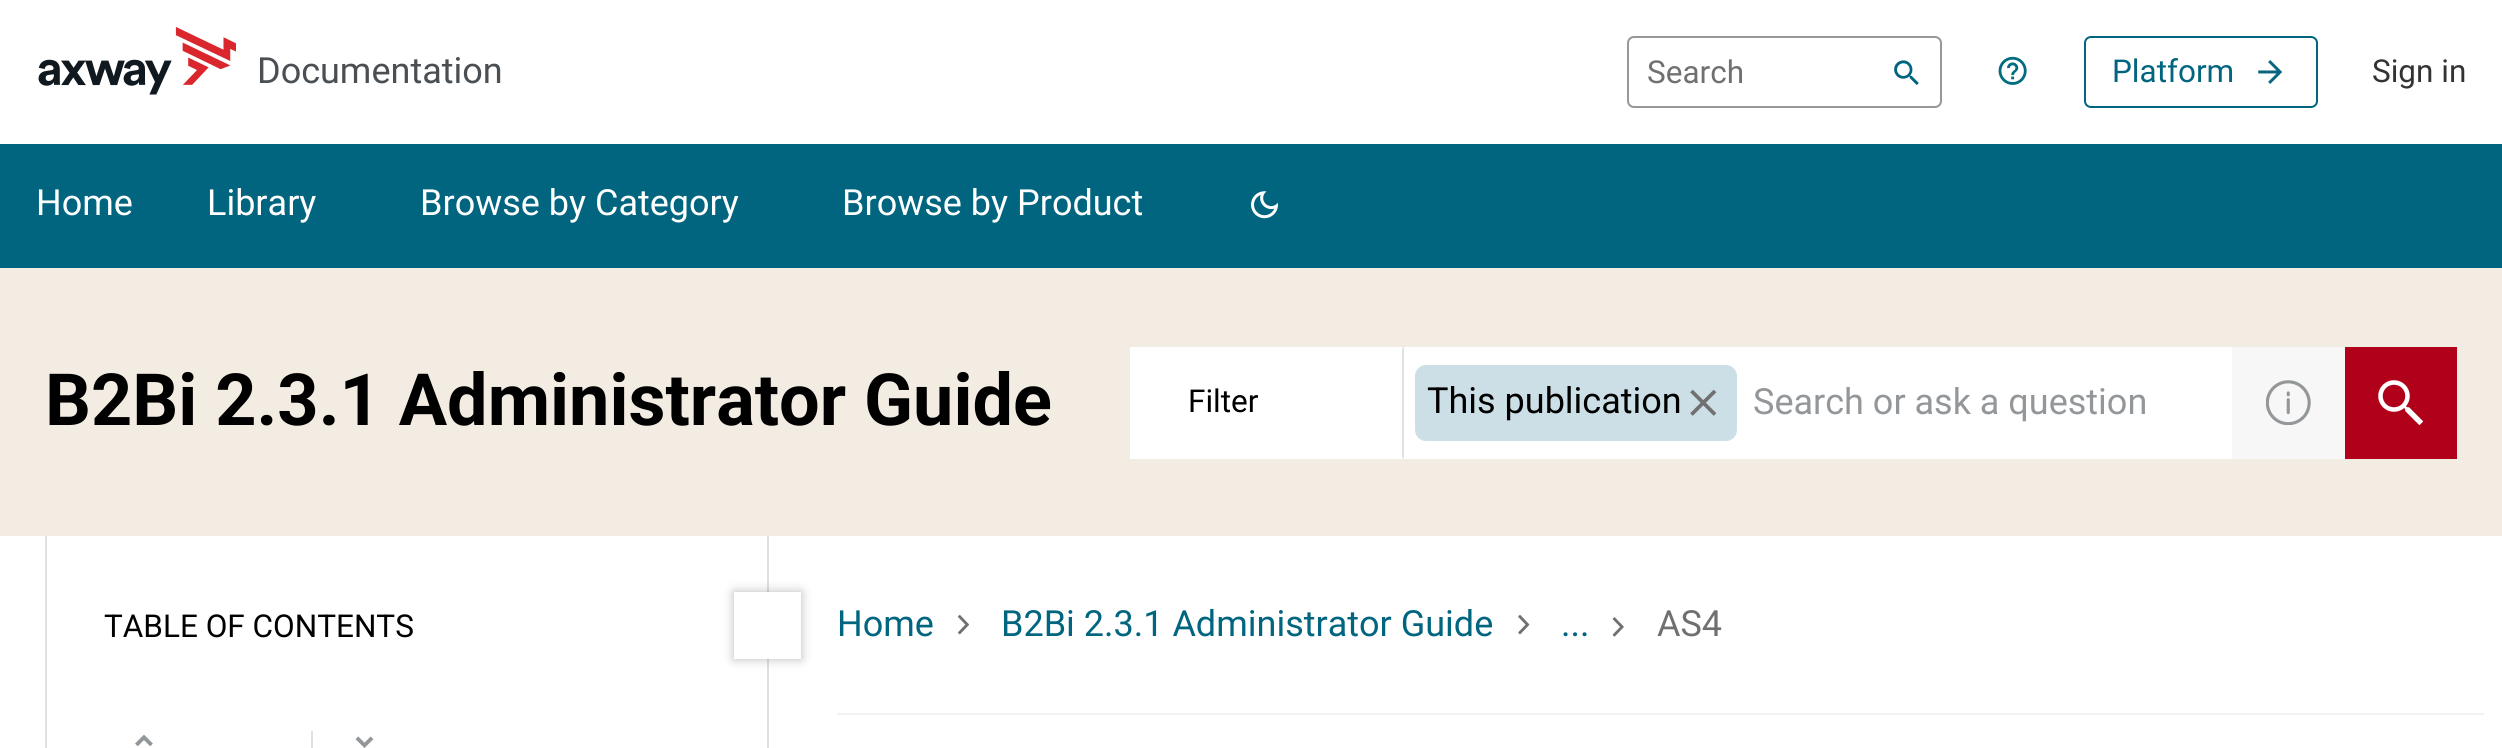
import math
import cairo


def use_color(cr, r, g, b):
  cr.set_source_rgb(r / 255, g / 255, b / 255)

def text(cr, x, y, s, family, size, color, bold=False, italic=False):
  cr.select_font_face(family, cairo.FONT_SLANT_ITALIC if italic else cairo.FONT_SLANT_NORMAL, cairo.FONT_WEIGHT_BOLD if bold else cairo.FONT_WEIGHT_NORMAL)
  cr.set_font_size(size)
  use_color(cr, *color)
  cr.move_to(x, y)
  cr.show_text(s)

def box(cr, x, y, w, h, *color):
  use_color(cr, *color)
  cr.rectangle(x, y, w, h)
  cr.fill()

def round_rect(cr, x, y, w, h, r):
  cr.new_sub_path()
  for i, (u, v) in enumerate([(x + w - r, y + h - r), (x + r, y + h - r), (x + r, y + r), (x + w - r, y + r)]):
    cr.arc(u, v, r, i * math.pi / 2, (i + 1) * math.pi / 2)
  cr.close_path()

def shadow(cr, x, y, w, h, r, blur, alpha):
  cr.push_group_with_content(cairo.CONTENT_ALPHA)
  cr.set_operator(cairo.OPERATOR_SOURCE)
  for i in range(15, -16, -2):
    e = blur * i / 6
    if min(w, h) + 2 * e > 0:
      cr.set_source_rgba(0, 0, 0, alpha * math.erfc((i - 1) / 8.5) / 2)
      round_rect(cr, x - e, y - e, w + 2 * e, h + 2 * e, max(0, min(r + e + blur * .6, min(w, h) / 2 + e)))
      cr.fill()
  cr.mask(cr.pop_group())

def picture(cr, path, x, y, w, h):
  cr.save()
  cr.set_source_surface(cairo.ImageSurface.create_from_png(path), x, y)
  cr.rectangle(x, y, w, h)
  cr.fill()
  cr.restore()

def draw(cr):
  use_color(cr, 255, 255, 255)
  cr.paint()
  picture(cr, "img_01.png", 38, 27, 198, 68)
  round_rect(cr, 1628, 37, 313, 70, 6)
  use_color(cr, 151, 152, 150)
  cr.stroke()
  picture(cr, "img_02.png", 1894, 60, 25, 25)
  picture(cr, "img_03.png", 1998, 56, 29, 29)
  round_rect(cr, 2085, 37, 232, 70, 6)
  use_color(cr, 0, 101, 128)
  cr.stroke()
  picture(cr, "img_04.png", 2258, 60, 25, 24)
  box(cr, 0, 144, 2502, 124, 1, 101, 128)
  picture(cr, "img_05.png", 1251, 191, 27, 28)
  box(cr, 0, 268, 2502, 268, 243, 236, 227)
  box(cr, 1130, 347, 1102, 112, 255, 255, 255)
  use_color(cr, 223, 224, 225)
  cr.new_path()
  cr.move_to(1404, 346)
  cr.line_to(1404, 459)
  cr.line_to(1402, 457)
  cr.line_to(1402, 349)
  cr.close_path()
  cr.fill()
  use_color(cr, 204, 223, 230)
  round_rect(cr, 1415, 365, 322, 76, 11)
  cr.fill()
  picture(cr, "img_06.png", 1690, 389, 27, 27)
  box(cr, 2232, 347, 113, 112, 247, 247, 247)
  picture(cr, "img_07.png", 2266, 380, 45, 45)
  box(cr, 2345, 347, 112, 112, 177, 0, 26)
  picture(cr, "img_08.png", 2378, 380, 45, 45)
  box(cr, 767, 536, 2, 212, 223, 224, 225)
  box(cr, 45, 536, 2, 212, 223, 224, 225)
  use_color(cr, 0, 0, 0)
  shadow(cr, 734, 592, 67, 67, 0, 5.5, 0.27)
  box(cr, 734, 592, 67, 67, 255, 255, 255)
  picture(cr, "img_09.png", 135, 734, 18, 13)
  box(cr, 311, 731, 2, 17, 223, 224, 225)
  picture(cr, "img_10.png", 355, 736, 19, 12)
  box(cr, 837, 713, 1647, 2, 242, 242, 242)
  picture(cr, "img_11.png", 958, 614, 11, 21)
  picture(cr, "img_12.png", 1518, 614, 12, 21)
  picture(cr, "img_13.png", 1612, 617, 12, 20)
  text(cr, 257, 83, "Documentation", "Roboto", 36, (74, 79, 84))
  text(cr, 1647, 83, "Search", "Roboto", 31.5, (112, 112, 112))
  text(cr, 2112, 82, "Platform", "Roboto", 31.5, (1, 101, 128))
  text(cr, 2372, 82, "Sign in", "Roboto", 31.5, (51, 51, 51))
  text(cr, 36, 215, "Home", "Roboto", 36, (255, 255, 255))
  text(cr, 207, 215, "Library", "Roboto", 36, (255, 255, 255))
  text(cr, 420, 215, "Browse by Category", "Roboto", 36, (255, 255, 255))
  text(cr, 842, 215, "Browse by Product", "Roboto", 36, (255, 255, 255))
  text(cr, 45, 425, "B2Bi 2.3.1 Administrator Guide", "Roboto", 72, (0, 0, 0), bold=True)
  text(cr, 1188, 412, "Filter", "Roboto", 31.5, (0, 0, 0))
  text(cr, 1427, 413, "This publication", "Roboto", 36, (0, 0, 0))
  text(cr, 1753, 414, "Search or ask a question", "Roboto", 36, (147, 151, 154))
  text(cr, 104, 637, "TABLE OF CONTENTS", "Roboto", 31.5, (0, 0, 0))
  text(cr, 837, 636, "Home", "Roboto", 36, (1, 101, 128))
  text(cr, 1001, 636, "B2Bi 2.3.1 Administrator Guide", "Roboto", 36, (1, 101, 128))
  text(cr, 1561, 636, "...", "Roboto", 36, (1, 101, 128))
  text(cr, 1657, 636, "AS4", "Roboto", 36, (112, 112, 112))


surface = cairo.ImageSurface(cairo.FORMAT_RGB24, 2502, 748)
cr = cairo.Context(surface)
options = cairo.FontOptions()
options.set_hint_metrics(cairo.HINT_METRICS_OFF)
options.set_hint_style(cairo.HINT_STYLE_NONE)
cr.set_font_options(options)
cr.set_miter_limit(4)
draw(cr)
surface.write_to_png("out.png")
